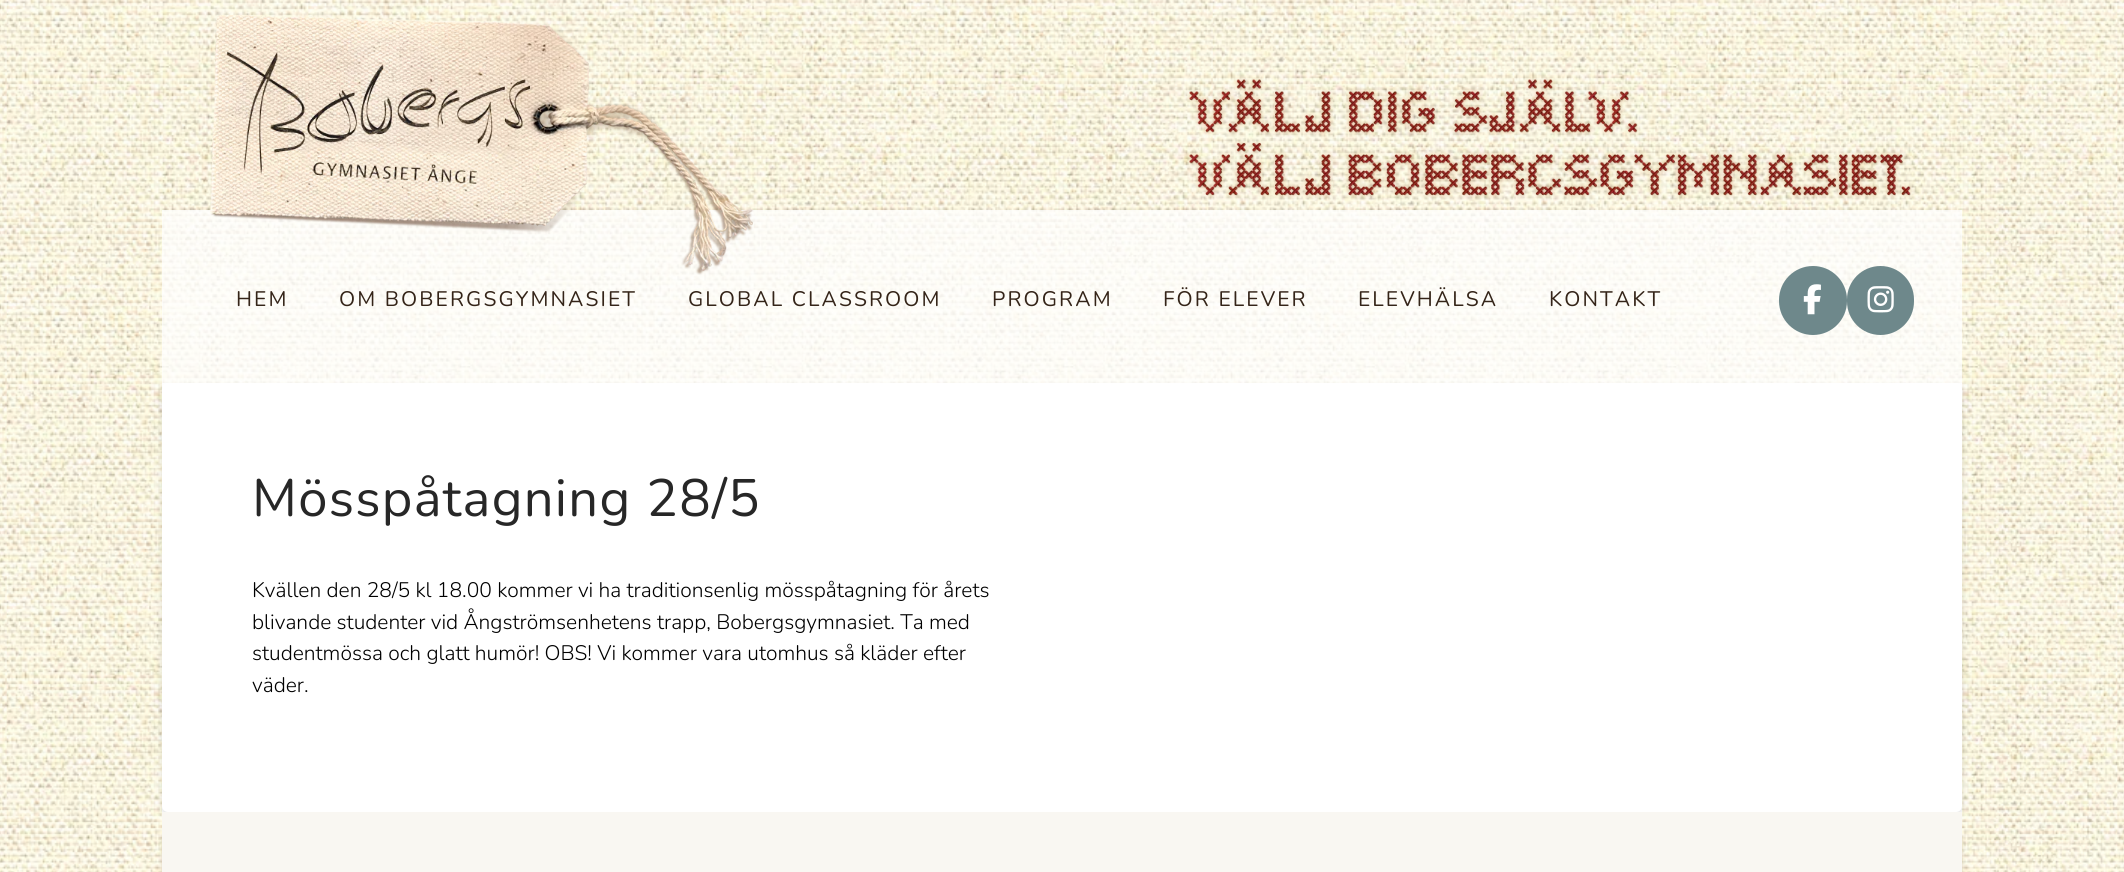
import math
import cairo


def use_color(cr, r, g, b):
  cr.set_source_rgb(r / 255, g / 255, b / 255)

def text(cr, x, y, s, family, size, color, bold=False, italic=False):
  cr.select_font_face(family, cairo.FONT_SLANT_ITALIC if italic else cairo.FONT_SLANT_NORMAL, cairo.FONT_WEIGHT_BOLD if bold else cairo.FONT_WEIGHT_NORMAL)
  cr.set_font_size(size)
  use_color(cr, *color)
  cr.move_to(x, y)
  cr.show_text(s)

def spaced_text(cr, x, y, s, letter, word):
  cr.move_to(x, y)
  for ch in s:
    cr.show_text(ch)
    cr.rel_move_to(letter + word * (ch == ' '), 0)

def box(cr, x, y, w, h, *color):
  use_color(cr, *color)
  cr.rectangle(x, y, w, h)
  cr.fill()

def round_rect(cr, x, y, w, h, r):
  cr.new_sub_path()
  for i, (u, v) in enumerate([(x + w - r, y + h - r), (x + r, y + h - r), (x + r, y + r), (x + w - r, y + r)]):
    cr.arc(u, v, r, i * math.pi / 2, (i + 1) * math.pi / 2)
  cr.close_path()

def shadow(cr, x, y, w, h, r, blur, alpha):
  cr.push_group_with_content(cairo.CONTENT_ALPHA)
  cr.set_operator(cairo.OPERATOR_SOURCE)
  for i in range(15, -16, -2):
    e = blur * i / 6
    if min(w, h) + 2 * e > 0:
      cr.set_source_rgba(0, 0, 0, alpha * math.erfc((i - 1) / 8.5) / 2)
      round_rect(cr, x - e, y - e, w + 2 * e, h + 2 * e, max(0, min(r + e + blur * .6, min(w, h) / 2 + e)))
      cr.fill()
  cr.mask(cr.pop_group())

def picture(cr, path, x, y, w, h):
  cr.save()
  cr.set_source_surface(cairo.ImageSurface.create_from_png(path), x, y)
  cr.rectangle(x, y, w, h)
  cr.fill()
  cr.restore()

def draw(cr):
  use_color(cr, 255, 255, 255)
  cr.paint()
  picture(cr, "img_01.png", 0, 0, 2124, 872)
  box(cr, 162, 383, 1800, 429, 255, 255, 255)
  use_color(cr, 0, 0, 0)
  shadow(cr, 162, 386, 1800, 429, 6, 3.5, 0.13)
  use_color(cr, 255, 255, 255)
  round_rect(cr, 162, 383, 1800, 429, 6)
  cr.fill()
  cr.set_source_rgba(1, 1, 1, 0.75)
  cr.rectangle(162, 210, 1800, 177)
  cr.fill()
  picture(cr, "img_02.png", 210, 15, 543, 260)
  picture(cr, "img_03.png", 1186, 77, 728, 122)
  use_color(cr, 110, 136, 139)
  round_rect(cr, 1779, 266, 68, 69, 34)
  cr.fill()
  picture(cr, "img_04.png", 1803, 284, 18, 31)
  round_rect(cr, 1847, 266, 67, 69, 33.5)
  cr.fill()
  picture(cr, "img_05.png", 1867, 286, 27, 27)
  use_color(cr, 128, 93, 64)
  shadow(cr, 162, 836, 1800, 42, 0, 2, 0.29)
  box(cr, 162, 812, 1800, 60, 249, 247, 242)
  cr.select_font_face("Nunito")
  cr.set_font_size(21)
  use_color(cr, 52, 36, 24)
  spaced_text(cr, 236, 306, "HEM", 2.1, 0)
  spaced_text(cr, 339, 306, "OM BOBERGSGYMNASIET", 2.1, 0)
  spaced_text(cr, 688, 306, "GLOBAL CLASSROOM", 2.1, 0)
  spaced_text(cr, 992, 306, "PROGRAM", 2.1, 0)
  spaced_text(cr, 1163, 306, "FÖR ELEVER", 2.1, 0)
  spaced_text(cr, 1358, 306, "ELEVHÄLSA", 2.1, 0)
  spaced_text(cr, 1549, 306, "KONTAKT", 2.1, 0)
  cr.set_font_size(52.5)
  use_color(cr, 39, 39, 39)
  spaced_text(cr, 252, 516, "Mösspåtagning 28/5", 1.3, 0)
  text(cr, 252, 597, "Kvällen den 28/5 kl 18.00 kommer vi ha traditionsenlig mösspåtagning för årets", "Nunito Light", 21, (0, 0, 0))
  text(cr, 252, 629, "blivande studenter vid Ångströmsenhetens trapp, Bobergsgymnasiet. Ta med", "Nunito Light", 21, (0, 0, 0))
  text(cr, 252, 660, "studentmössa och glatt humör! OBS! Vi kommer vara utomhus så kläder efter", "Nunito Light", 21, (0, 0, 0))
  text(cr, 252, 692, "väder.", "Nunito Light", 21, (0, 0, 0))


surface = cairo.ImageSurface(cairo.FORMAT_RGB24, 2124, 872)
cr = cairo.Context(surface)
options = cairo.FontOptions()
options.set_hint_metrics(cairo.HINT_METRICS_OFF)
options.set_hint_style(cairo.HINT_STYLE_NONE)
cr.set_font_options(options)
cr.set_miter_limit(4)
draw(cr)
surface.write_to_png("out.png")
